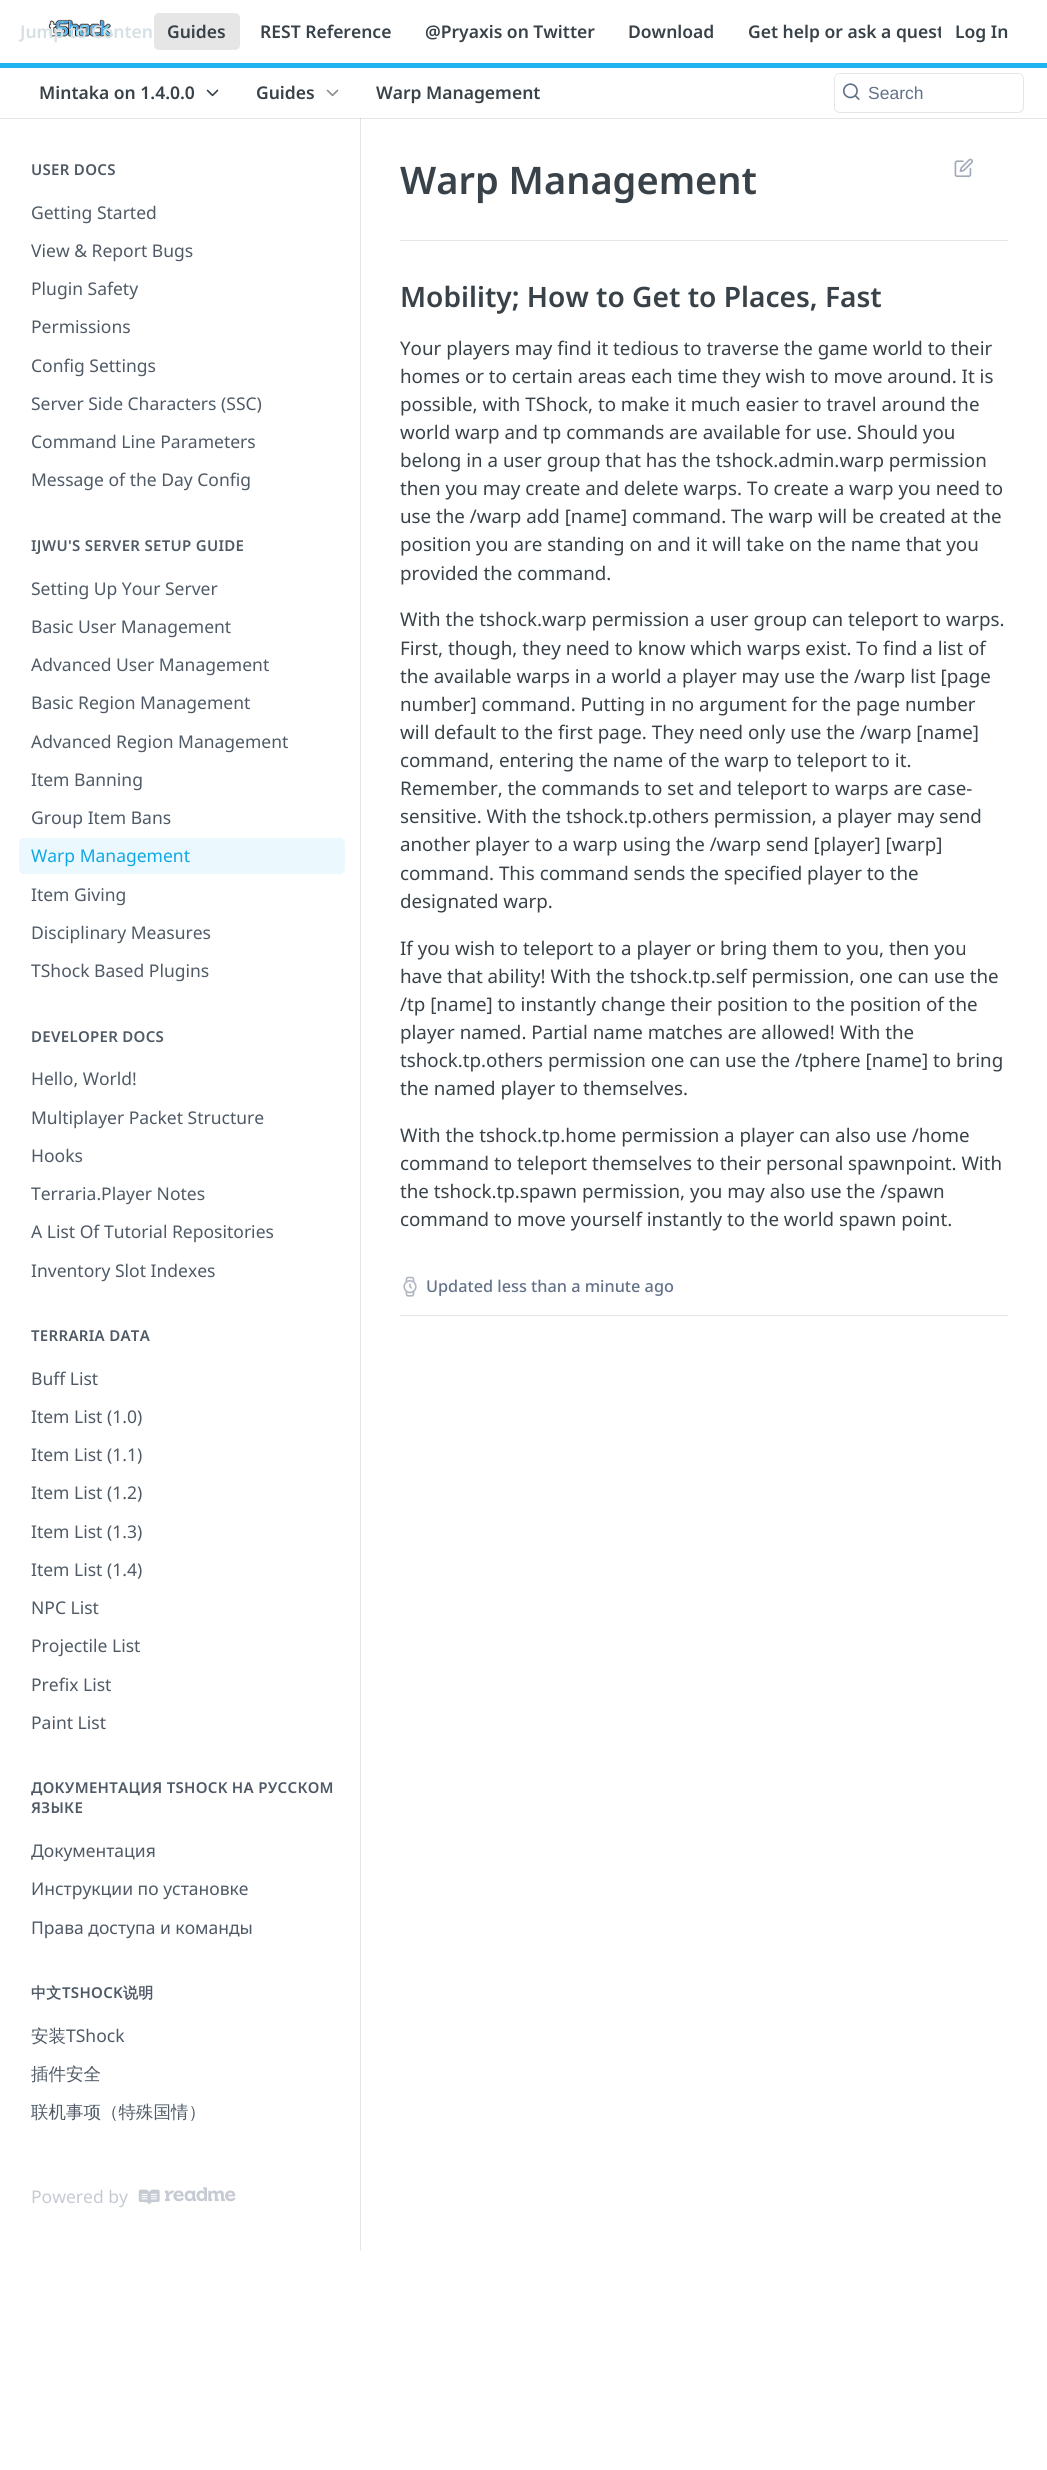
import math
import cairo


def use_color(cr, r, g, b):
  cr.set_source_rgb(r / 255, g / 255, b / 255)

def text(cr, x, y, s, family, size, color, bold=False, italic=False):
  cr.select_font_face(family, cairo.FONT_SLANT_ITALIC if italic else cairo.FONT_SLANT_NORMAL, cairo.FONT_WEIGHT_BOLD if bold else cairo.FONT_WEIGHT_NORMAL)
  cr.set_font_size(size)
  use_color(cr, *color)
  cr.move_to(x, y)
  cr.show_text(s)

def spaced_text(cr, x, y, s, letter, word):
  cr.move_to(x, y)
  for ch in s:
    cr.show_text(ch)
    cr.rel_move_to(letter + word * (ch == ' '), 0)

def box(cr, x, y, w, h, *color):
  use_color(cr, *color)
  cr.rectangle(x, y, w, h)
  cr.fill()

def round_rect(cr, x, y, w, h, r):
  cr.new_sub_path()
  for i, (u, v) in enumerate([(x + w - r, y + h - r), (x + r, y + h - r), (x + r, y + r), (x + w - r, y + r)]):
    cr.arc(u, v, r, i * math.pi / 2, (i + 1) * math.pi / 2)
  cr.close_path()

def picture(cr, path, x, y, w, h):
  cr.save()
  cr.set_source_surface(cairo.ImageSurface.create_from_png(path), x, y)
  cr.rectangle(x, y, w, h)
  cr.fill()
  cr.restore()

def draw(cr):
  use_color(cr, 255, 255, 255)
  cr.paint()
  box(cr, 360, 118, 1, 2133, 230, 230, 230)
  cr.set_source_rgba(0, 0, 0, 0.1)
  cr.new_path()
  cr.move_to(0, 118)
  cr.line_to(0, 119)
  cr.line_to(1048, 119)
  cr.line_to(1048, 1)
  cr.line_to(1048, 118)
  cr.close_path()
  cr.fill()
  box(cr, 0, 63, 1047, 5, 30, 180, 240)
  picture(cr, "img_01.png", 48, 19, 65, 18)
  use_color(cr, 230, 230, 230)
  round_rect(cr, 154, 13, 86, 37, 5)
  cr.fill()
  picture(cr, "img_02.png", 206, 89, 13, 8)
  picture(cr, "img_03.png", 326, 89, 13, 8)
  round_rect(cr, 834.5, 73.5, 189, 39, 5.5)
  cr.set_line_width(1)
  cr.stroke()
  use_color(cr, 255, 255, 255)
  round_rect(cr, 835, 74, 188, 37, 5)
  cr.fill()
  picture(cr, "img_04.png", 842, 83, 18, 17)
  use_color(cr, 235, 248, 254)
  round_rect(cr, 19, 838, 326, 36, 5)
  cr.fill()
  picture(cr, "img_05.png", 138, 2187, 98, 18)
  box(cr, 400, 240, 608, 1, 230, 230, 230)
  picture(cr, "img_06.png", 954, 158, 19, 20)
  picture(cr, "img_07.png", 403, 1276, 14, 21)
  box(cr, 400, 1315, 608, 1, 230, 230, 230)
  text(cr, 20, 38, "Jump to Conten", "Noto Sans SemiBold", 17.5, (214, 223, 228))
  text(cr, 167, 38, "Guides", "Noto Sans SemiBold", 17.5, (56, 66, 72))
  text(cr, 260, 38, "REST Reference", "Noto Sans SemiBold", 17.5, (56, 66, 72))
  text(cr, 425, 38, "@Pryaxis on Twitter", "Noto Sans SemiBold", 17.5, (56, 66, 72))
  text(cr, 628, 38, "Download", "Noto Sans SemiBold", 17.5, (56, 66, 72))
  cr.save()
  cr.rectangle(0, 0, 941, 63)
  cr.clip()
  text(cr, 748, 38, "Get help or ask a quest", "Noto Sans SemiBold", 17.5, (56, 66, 72))
  cr.restore()
  text(cr, 955, 38, "Log In", "Noto Sans SemiBold", 17.5, (56, 66, 72))
  text(cr, 39, 99, "Mintaka on 1.4.0.0", "Noto Sans SemiBold", 17.5, (56, 66, 72))
  text(cr, 256, 99, "Guides", "Noto Sans SemiBold", 17.5, (56, 66, 72))
  text(cr, 376, 99, "Warp Management", "Noto Sans SemiBold", 17.5, (56, 66, 72))
  text(cr, 868, 99, "Search", "Liberation Sans", 17.5, (99, 114, 136))
  cr.select_font_face("Noto Sans SemiBold")
  cr.set_font_size(15)
  use_color(cr, 79, 90, 102)
  spaced_text(cr, 31, 175, "USER DOCS", 0.3, 0)
  text(cr, 31, 219, "Getting Started", "Noto Sans", 17.5, (79, 90, 102))
  text(cr, 31, 257, "View & Report Bugs", "Noto Sans", 17.5, (79, 90, 102))
  text(cr, 31, 295, "Plugin Safety", "Noto Sans", 17.5, (79, 90, 102))
  text(cr, 31, 333, "Permissions", "Noto Sans", 17.5, (79, 90, 102))
  text(cr, 31, 372, "Config Settings", "Noto Sans", 17.5, (79, 90, 102))
  text(cr, 31, 410, "Server Side Characters (SSC)", "Noto Sans", 17.5, (79, 90, 102))
  text(cr, 31, 448, "Command Line Parameters", "Noto Sans", 17.5, (79, 90, 102))
  text(cr, 31, 486, "Message of the Day Config", "Noto Sans", 17.5, (79, 90, 102))
  cr.select_font_face("Noto Sans SemiBold")
  cr.set_font_size(15)
  spaced_text(cr, 31, 551, "IJWU'S SERVER SETUP GUIDE", 0.3, 0)
  text(cr, 31, 595, "Setting Up Your Server", "Noto Sans", 17.5, (79, 90, 102))
  text(cr, 31, 633, "Basic User Management", "Noto Sans", 17.5, (79, 90, 102))
  text(cr, 31, 671, "Advanced User Management", "Noto Sans", 17.5, (79, 90, 102))
  text(cr, 31, 709, "Basic Region Management", "Noto Sans", 17.5, (79, 90, 102))
  text(cr, 31, 748, "Advanced Region Management", "Noto Sans", 17.5, (79, 90, 102))
  text(cr, 31, 786, "Item Banning", "Noto Sans", 17.5, (79, 90, 102))
  text(cr, 31, 824, "Group Item Bans", "Noto Sans", 17.5, (79, 90, 102))
  text(cr, 31, 862, "Warp Management", "Noto Sans", 17.5, (15, 168, 229))
  text(cr, 31, 901, "Item Giving", "Noto Sans", 17.5, (79, 90, 102))
  text(cr, 31, 939, "Disciplinary Measures", "Noto Sans", 17.5, (79, 90, 102))
  text(cr, 31, 977, "TShock Based Plugins", "Noto Sans", 17.5, (79, 90, 102))
  cr.select_font_face("Noto Sans SemiBold")
  cr.set_font_size(15)
  spaced_text(cr, 31, 1042, "DEVELOPER DOCS", 0.3, 0)
  text(cr, 31, 1085, "Hello, World!", "Noto Sans", 17.5, (79, 90, 102))
  text(cr, 31, 1124, "Multiplayer Packet Structure", "Noto Sans", 17.5, (79, 90, 102))
  text(cr, 31, 1162, "Hooks", "Noto Sans", 17.5, (79, 90, 102))
  text(cr, 31, 1200, "Terraria.Player Notes", "Noto Sans", 17.5, (79, 90, 102))
  text(cr, 31, 1238, "A List Of Tutorial Repositories", "Noto Sans", 17.5, (79, 90, 102))
  text(cr, 31, 1277, "Inventory Slot Indexes", "Noto Sans", 17.5, (79, 90, 102))
  cr.select_font_face("Noto Sans SemiBold")
  cr.set_font_size(15)
  spaced_text(cr, 31, 1341, "TERRARIA DATA", 0.3, 0)
  text(cr, 31, 1385, "Buff List", "Noto Sans", 17.5, (79, 90, 102))
  text(cr, 31, 1423, "Item List (1.0)", "Noto Sans", 17.5, (79, 90, 102))
  text(cr, 31, 1461, "Item List (1.1)", "Noto Sans", 17.5, (79, 90, 102))
  text(cr, 31, 1499, "Item List (1.2)", "Noto Sans", 17.5, (79, 90, 102))
  text(cr, 31, 1538, "Item List (1.3)", "Noto Sans", 17.5, (79, 90, 102))
  text(cr, 31, 1576, "Item List (1.4)", "Noto Sans", 17.5, (79, 90, 102))
  text(cr, 31, 1614, "NPC List", "Noto Sans", 17.5, (79, 90, 102))
  text(cr, 31, 1652, "Projectile List", "Noto Sans", 17.5, (79, 90, 102))
  text(cr, 31, 1691, "Prefix List", "Noto Sans", 17.5, (79, 90, 102))
  text(cr, 31, 1729, "Paint List", "Noto Sans", 17.5, (79, 90, 102))
  cr.select_font_face("Noto Sans SemiBold")
  cr.set_font_size(15)
  spaced_text(cr, 31, 1793, "ДОКУМЕНТАЦИЯ TSHOCK НА РУССКОМ", 0.3, 0)
  spaced_text(cr, 31, 1813, "ЯЗЫКЕ", 0.3, 0)
  text(cr, 31, 1857, "Документация", "Noto Sans", 17.5, (79, 90, 102))
  text(cr, 31, 1895, "Инструкции по установке", "Noto Sans", 17.5, (79, 90, 102))
  text(cr, 31, 1934, "Права доступа и команды", "Noto Sans", 17.5, (79, 90, 102))
  cr.select_font_face("WenQuanYi Zen Hei", cairo.FONT_SLANT_NORMAL, cairo.FONT_WEIGHT_BOLD)
  cr.set_font_size(15)
  spaced_text(cr, 31, 1998, "中文", 0.3, 0)
  cr.select_font_face("Noto Sans SemiBold")
  spaced_text(cr, 62, 1998, "TSHOCK", 0.3, 0)
  cr.select_font_face("WenQuanYi Zen Hei", cairo.FONT_SLANT_NORMAL, cairo.FONT_WEIGHT_BOLD)
  spaced_text(cr, 123, 1998, "说明", 0.3, 0)
  text(cr, 31, 2042, "安装", "WenQuanYi Zen Hei Medium", 17.5, (79, 90, 102))
  text(cr, 66, 2042, "TShock", "Noto Sans", 17.5, (79, 90, 102))
  text(cr, 31, 2080, "插件安全", "WenQuanYi Zen Hei Medium", 17.5, (79, 90, 102))
  text(cr, 31, 2118, "联机事项（特殊国情）", "WenQuanYi Zen Hei Medium", 17.5, (79, 90, 102))
  text(cr, 31, 2203, "Powered by", "Noto Sans", 17.5, (198, 203, 211))
  text(cr, 400, 194, "Warp Management", "Noto Sans SemiBold", 38, (56, 66, 72))
  text(cr, 400, 307, "Mobility; How to Get to Places, Fast", "Noto Sans SemiBold", 28.1, (56, 66, 72))
  text(cr, 400, 355, "Your players may find it tedious to traverse the game world to their", "Noto Sans", 18.75, (56, 66, 72))
  text(cr, 400, 383, "homes or to certain areas each time they wish to move around. It is", "Noto Sans", 18.75, (56, 66, 72))
  text(cr, 400, 411, "possible, with TShock, to make it much easier to travel around the", "Noto Sans", 18.75, (56, 66, 72))
  text(cr, 400, 439, "world warp and tp commands are available for use. Should you", "Noto Sans", 18.75, (56, 66, 72))
  text(cr, 400, 467, "belong in a user group that has the tshock.admin.warp permission", "Noto Sans", 18.75, (56, 66, 72))
  text(cr, 400, 495, "then you may create and delete warps. To create a warp you need to", "Noto Sans", 18.75, (56, 66, 72))
  text(cr, 400, 523, "use the /warp add [name] command. The warp will be created at the", "Noto Sans", 18.75, (56, 66, 72))
  text(cr, 400, 551, "position you are standing on and it will take on the name that you", "Noto Sans", 18.75, (56, 66, 72))
  text(cr, 400, 580, "provided the command.", "Noto Sans", 18.75, (56, 66, 72))
  text(cr, 400, 626, "With the tshock.warp permission a user group can teleport to warps.", "Noto Sans", 18.75, (56, 66, 72))
  text(cr, 400, 655, "First, though, they need to know which warps exist. To find a list of", "Noto Sans", 18.75, (56, 66, 72))
  text(cr, 400, 683, "the available warps in a world a player may use the /warp list [page", "Noto Sans", 18.75, (56, 66, 72))
  text(cr, 400, 711, "number] command. Putting in no argument for the page number", "Noto Sans", 18.75, (56, 66, 72))
  text(cr, 400, 739, "will default to the first page. They need only use the /warp [name]", "Noto Sans", 18.75, (56, 66, 72))
  text(cr, 400, 767, "command, entering the name of the warp to teleport to it.", "Noto Sans", 18.75, (56, 66, 72))
  text(cr, 400, 795, "Remember, the commands to set and teleport to warps are case-", "Noto Sans", 18.75, (56, 66, 72))
  text(cr, 400, 823, "sensitive. With the tshock.tp.others permission, a player may send", "Noto Sans", 18.75, (56, 66, 72))
  text(cr, 400, 851, "another player to a warp using the /warp send [player] [warp]", "Noto Sans", 18.75, (56, 66, 72))
  text(cr, 400, 880, "command. This command sends the specified player to the", "Noto Sans", 18.75, (56, 66, 72))
  text(cr, 400, 908, "designated warp.", "Noto Sans", 18.75, (56, 66, 72))
  text(cr, 400, 955, "If you wish to teleport to a player or bring them to you, then you", "Noto Sans", 18.75, (56, 66, 72))
  text(cr, 400, 983, "have that ability! With the tshock.tp.self permission, one can use the", "Noto Sans", 18.75, (56, 66, 72))
  text(cr, 400, 1011, "/tp [name] to instantly change their position to the position of the", "Noto Sans", 18.75, (56, 66, 72))
  text(cr, 400, 1039, "player named. Partial name matches are allowed! With the", "Noto Sans", 18.75, (56, 66, 72))
  text(cr, 400, 1067, "tshock.tp.others permission one can use the /tphere [name] to bring", "Noto Sans", 18.75, (56, 66, 72))
  text(cr, 400, 1095, "the named player to themselves.", "Noto Sans", 18.75, (56, 66, 72))
  text(cr, 400, 1142, "With the tshock.tp.home permission a player can also use /home", "Noto Sans", 18.75, (56, 66, 72))
  text(cr, 400, 1170, "command to teleport themselves to their personal spawnpoint. With", "Noto Sans", 18.75, (56, 66, 72))
  text(cr, 400, 1198, "the tshock.tp.spawn permission, you may also use the /spawn", "Noto Sans", 18.75, (56, 66, 72))
  text(cr, 400, 1226, "command to move yourself instantly to the world spawn point.", "Noto Sans", 18.75, (56, 66, 72))
  text(cr, 426, 1292, "Updated less than a minute ago", "Noto Sans Medium", 16.25, (99, 114, 136))


surface = cairo.ImageSurface(cairo.FORMAT_RGB24, 1047, 2470)
cr = cairo.Context(surface)
options = cairo.FontOptions()
options.set_hint_metrics(cairo.HINT_METRICS_OFF)
options.set_hint_style(cairo.HINT_STYLE_NONE)
cr.set_font_options(options)
cr.set_miter_limit(4)
draw(cr)
surface.write_to_png("out.png")
